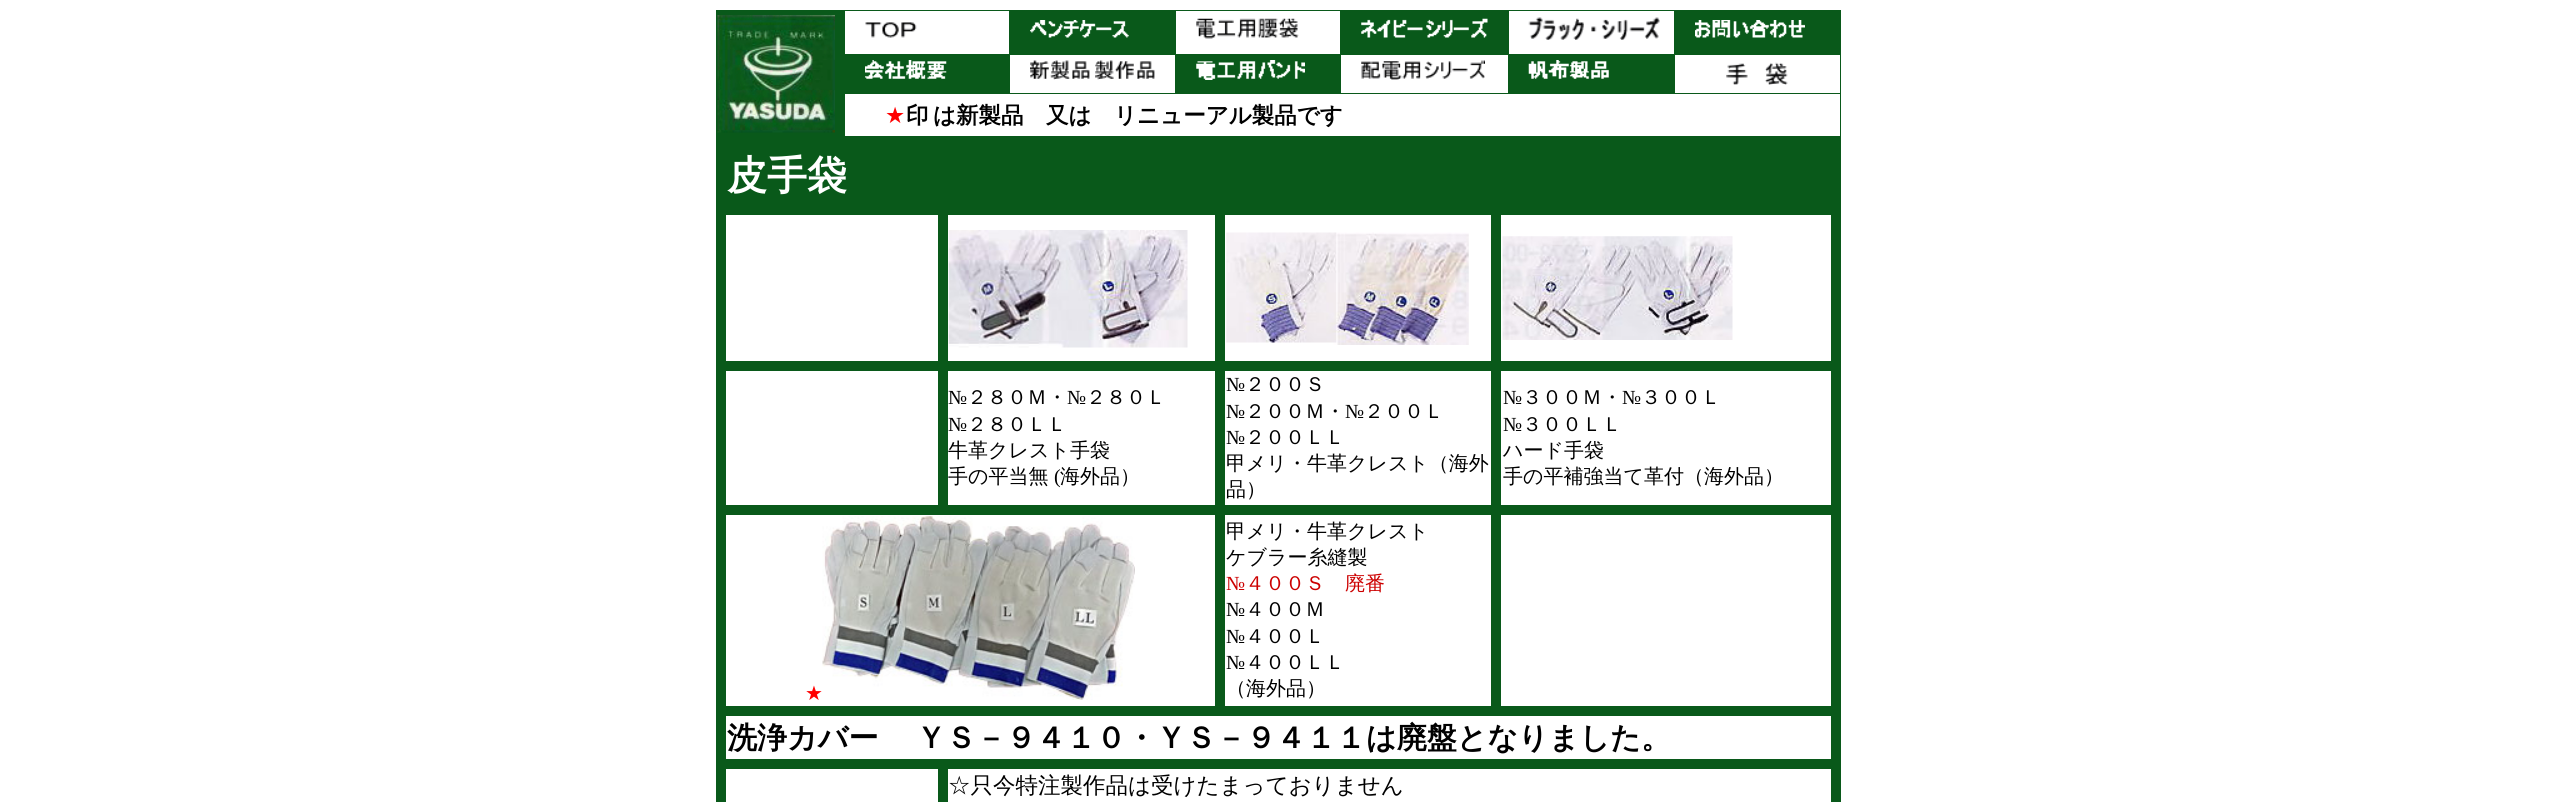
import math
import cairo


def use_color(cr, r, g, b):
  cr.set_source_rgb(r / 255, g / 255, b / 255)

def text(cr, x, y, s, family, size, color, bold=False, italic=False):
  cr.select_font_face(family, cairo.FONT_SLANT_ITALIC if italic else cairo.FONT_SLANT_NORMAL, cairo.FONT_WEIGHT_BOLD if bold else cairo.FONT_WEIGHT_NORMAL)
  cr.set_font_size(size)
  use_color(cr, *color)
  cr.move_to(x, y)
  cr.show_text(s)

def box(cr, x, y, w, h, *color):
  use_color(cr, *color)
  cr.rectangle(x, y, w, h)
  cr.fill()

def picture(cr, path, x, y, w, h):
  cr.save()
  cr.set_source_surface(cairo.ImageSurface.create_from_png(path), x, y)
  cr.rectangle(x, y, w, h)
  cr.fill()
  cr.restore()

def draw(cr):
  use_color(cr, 255, 255, 255)
  cr.paint()
  box(cr, 716, 10, 1125, 792, 9, 89, 26)
  picture(cr, "img_01.png", 717, 15, 118, 118)
  box(cr, 845, 11, 164, 43, 255, 255, 255)
  picture(cr, "img_02.png", 865, 22, 52, 16)
  picture(cr, "img_03.png", 1030, 20, 99, 18)
  box(cr, 1176, 11, 164, 43, 255, 255, 255)
  picture(cr, "img_04.png", 1196, 18, 103, 21)
  picture(cr, "img_05.png", 1361, 18, 127, 20)
  box(cr, 1509, 11, 165, 43, 255, 255, 255)
  picture(cr, "img_06.png", 1528, 17, 132, 23)
  picture(cr, "img_07.png", 1695, 20, 110, 18)
  picture(cr, "img_08.png", 865, 60, 82, 19)
  box(cr, 1010, 55, 165, 38, 255, 255, 255)
  picture(cr, "img_09.png", 1030, 60, 60, 20)
  picture(cr, "img_10.png", 1095, 60, 60, 20)
  picture(cr, "img_11.png", 1196, 60, 109, 20)
  box(cr, 1341, 55, 167, 38, 255, 255, 255)
  picture(cr, "img_12.png", 1361, 60, 124, 20)
  picture(cr, "img_13.png", 1528, 60, 81, 19)
  box(cr, 1675, 55, 165, 38, 255, 255, 255)
  picture(cr, "img_14.png", 1726, 62, 62, 23)
  box(cr, 845, 94, 995, 42, 255, 255, 255)
  box(cr, 726, 215, 212, 146, 255, 255, 255)
  box(cr, 948, 215, 267, 146, 255, 255, 255)
  picture(cr, "img_15.png", 948, 230, 240, 118)
  box(cr, 1225, 215, 266, 146, 255, 255, 255)
  picture(cr, "img_16.png", 1226, 232, 243, 113)
  box(cr, 1501, 215, 330, 146, 255, 255, 255)
  picture(cr, "img_17.png", 1502, 236, 231, 104)
  box(cr, 726, 371, 212, 134, 255, 255, 255)
  box(cr, 948, 371, 267, 134, 255, 255, 255)
  box(cr, 1225, 371, 266, 134, 255, 255, 255)
  box(cr, 1501, 371, 330, 134, 255, 255, 255)
  box(cr, 726, 515, 489, 191, 255, 255, 255)
  picture(cr, "img_18.png", 822, 516, 313, 184)
  box(cr, 1225, 515, 266, 191, 255, 255, 255)
  box(cr, 1501, 515, 330, 191, 255, 255, 255)
  box(cr, 726, 716, 1105, 43, 255, 255, 255)
  box(cr, 726, 769, 212, 33, 255, 255, 255)
  box(cr, 948, 769, 883, 33, 255, 255, 255)
  text(cr, 885, 123, "★", "DejaVu Sans", 22.5, (255, 0, 0))
  text(cr, 906, 123, "印", "WenQuanYi Zen Hei", 22.5, (0, 0, 0), bold=True)
  text(cr, 933, 123, "は新製品　又は　リニューアル製品です", "WenQuanYi Zen Hei", 22.5, (0, 0, 0), bold=True)
  text(cr, 727, 189, "皮手袋", "WenQuanYi Zen Hei", 40, (255, 255, 255), bold=True)
  text(cr, 948, 404, "№", "Liberation Serif", 20, (0, 0, 0))
  text(cr, 967, 404, "２８０Ｍ・", "WenQuanYi Zen Hei Medium", 20, (0, 0, 0))
  text(cr, 1067, 404, "№", "Liberation Serif", 20, (0, 0, 0))
  text(cr, 1086, 404, "２８０Ｌ", "WenQuanYi Zen Hei Medium", 20, (0, 0, 0))
  text(cr, 948, 431, "№", "Liberation Serif", 20, (0, 0, 0))
  text(cr, 967, 431, "２８０ＬＬ", "WenQuanYi Zen Hei Medium", 20, (0, 0, 0))
  text(cr, 948, 457, "牛革クレスト手袋", "WenQuanYi Zen Hei Medium", 20, (0, 0, 0))
  text(cr, 948, 483, "手の平当無", "WenQuanYi Zen Hei Medium", 20, (0, 0, 0))
  text(cr, 1054, 483, "(", "Liberation Serif", 20, (0, 0, 0))
  text(cr, 1060, 483, "海外品）", "WenQuanYi Zen Hei Medium", 20, (0, 0, 0))
  text(cr, 1226, 391, "№", "Liberation Serif", 20, (0, 0, 0))
  text(cr, 1245, 391, "２００Ｓ", "WenQuanYi Zen Hei Medium", 20, (0, 0, 0))
  text(cr, 1226, 418, "№", "Liberation Serif", 20, (0, 0, 0))
  text(cr, 1245, 418, "２００Ｍ・", "WenQuanYi Zen Hei Medium", 20, (0, 0, 0))
  text(cr, 1345, 418, "№", "Liberation Serif", 20, (0, 0, 0))
  text(cr, 1364, 418, "２００Ｌ", "WenQuanYi Zen Hei Medium", 20, (0, 0, 0))
  text(cr, 1226, 444, "№", "Liberation Serif", 20, (0, 0, 0))
  text(cr, 1245, 444, "２００ＬＬ", "WenQuanYi Zen Hei Medium", 20, (0, 0, 0))
  text(cr, 1226, 470, "甲メリ・牛革クレスト（海外", "WenQuanYi Zen Hei Medium", 20, (0, 0, 0))
  text(cr, 1226, 496, "品）", "WenQuanYi Zen Hei Medium", 20, (0, 0, 0))
  text(cr, 1503, 404, "№", "Liberation Serif", 20, (0, 0, 0))
  text(cr, 1522, 404, "３００Ｍ・", "WenQuanYi Zen Hei Medium", 20, (0, 0, 0))
  text(cr, 1622, 404, "№", "Liberation Serif", 20, (0, 0, 0))
  text(cr, 1641, 404, "３００Ｌ", "WenQuanYi Zen Hei Medium", 20, (0, 0, 0))
  text(cr, 1503, 431, "№", "Liberation Serif", 20, (0, 0, 0))
  text(cr, 1522, 431, "３００ＬＬ", "WenQuanYi Zen Hei Medium", 20, (0, 0, 0))
  text(cr, 1503, 457, "ハード手袋", "WenQuanYi Zen Hei Medium", 20, (0, 0, 0))
  text(cr, 1503, 483, "手の平補強当て革付（海外品）", "WenQuanYi Zen Hei Medium", 20, (0, 0, 0))
  text(cr, 805, 700, "★", "DejaVu Sans", 20, (255, 0, 0))
  text(cr, 1226, 538, "甲メリ・牛革クレスト", "WenQuanYi Zen Hei Medium", 20, (0, 0, 0))
  text(cr, 1226, 564, "ケブラー糸縫製", "WenQuanYi Zen Hei Medium", 20, (0, 0, 0))
  text(cr, 1226, 590, "№", "Liberation Serif", 20, (204, 0, 0))
  text(cr, 1245, 590, "４００Ｓ　廃番", "WenQuanYi Zen Hei Medium", 20, (204, 0, 0))
  text(cr, 1226, 616, "№", "Liberation Serif", 20, (0, 0, 0))
  text(cr, 1245, 616, "４００Ｍ", "WenQuanYi Zen Hei Medium", 20, (0, 0, 0))
  text(cr, 1226, 643, "№", "Liberation Serif", 20, (0, 0, 0))
  text(cr, 1245, 643, "４００Ｌ", "WenQuanYi Zen Hei Medium", 20, (0, 0, 0))
  text(cr, 1226, 669, "№", "Liberation Serif", 20, (0, 0, 0))
  text(cr, 1245, 669, "４００ＬＬ", "WenQuanYi Zen Hei Medium", 20, (0, 0, 0))
  text(cr, 1226, 695, "（海外品）", "WenQuanYi Zen Hei Medium", 20, (0, 0, 0))
  text(cr, 727, 748, "洗浄カバー", "WenQuanYi Zen Hei", 30, (0, 0, 0), bold=True)
  text(cr, 916, 748, "ＹＳ－９４１０・ＹＳ－９４１１は廃盤となりました。", "WenQuanYi Zen Hei", 30, (0, 0, 0), bold=True)
  text(cr, 948, 793, "☆只今特注製作品は受けたまっておりません", "WenQuanYi Zen Hei Medium", 22.5, (0, 0, 0))


surface = cairo.ImageSurface(cairo.FORMAT_RGB24, 2556, 802)
cr = cairo.Context(surface)
options = cairo.FontOptions()
options.set_hint_metrics(cairo.HINT_METRICS_OFF)
options.set_hint_style(cairo.HINT_STYLE_NONE)
cr.set_font_options(options)
cr.set_miter_limit(4)
draw(cr)
surface.write_to_png("out.png")
